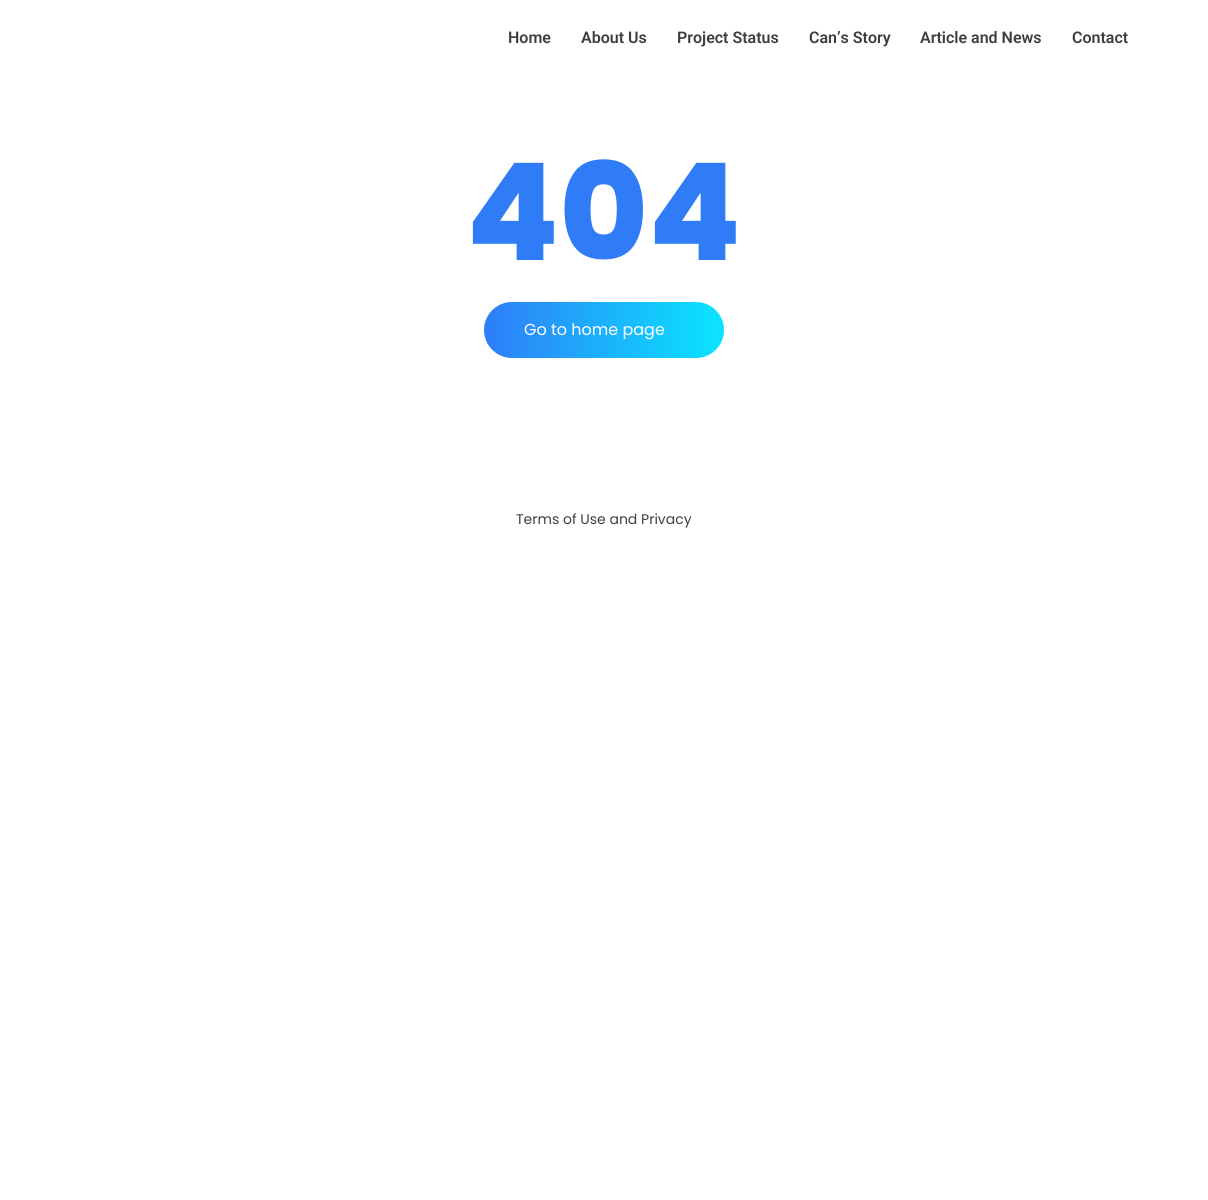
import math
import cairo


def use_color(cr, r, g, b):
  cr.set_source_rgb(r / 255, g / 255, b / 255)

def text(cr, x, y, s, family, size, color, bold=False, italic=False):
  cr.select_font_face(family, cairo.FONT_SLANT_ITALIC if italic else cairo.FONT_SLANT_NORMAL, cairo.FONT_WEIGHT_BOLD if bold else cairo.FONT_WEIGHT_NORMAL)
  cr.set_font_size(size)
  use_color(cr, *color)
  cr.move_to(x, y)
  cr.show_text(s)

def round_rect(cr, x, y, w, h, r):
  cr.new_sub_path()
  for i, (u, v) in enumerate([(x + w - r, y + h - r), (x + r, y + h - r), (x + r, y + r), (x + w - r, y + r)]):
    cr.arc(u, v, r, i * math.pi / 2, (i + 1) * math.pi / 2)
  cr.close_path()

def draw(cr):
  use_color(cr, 255, 255, 255)
  cr.paint()
  gradient = cairo.LinearGradient(484, 330, 724, 330)
  gradient.add_color_stop_rgba(0, 0.184, 0.49, 0.969, 1)
  gradient.add_color_stop_rgba(1, 0.039, 0.898, 1, 1)
  cr.set_source(gradient)
  round_rect(cr, 484, 302, 240, 56, 28)
  cr.fill()
  text(cr, 508, 43, "Home", "Roboto SemiBold", 16, (62, 62, 62))
  text(cr, 581, 43, "About Us", "Roboto SemiBold", 16, (62, 62, 62))
  text(cr, 677, 43, "Project Status", "Roboto SemiBold", 16, (62, 62, 62))
  text(cr, 809, 43, "Can’s Story", "Roboto SemiBold", 16, (62, 62, 62))
  text(cr, 920, 43, "Article and News", "Roboto SemiBold", 16, (62, 62, 62))
  text(cr, 1072, 43, "Contact", "Roboto SemiBold", 16, (62, 62, 62))
  text(cr, 466, 260, "404", "Poppins ExtraBold", 135, (47, 124, 246))
  text(cr, 524, 335, "Go to home page", "Poppins", 16, (255, 255, 255))
  text(cr, 516, 524, "Terms of Use and Privacy", "Poppins", 14, (62, 62, 62))


surface = cairo.ImageSurface(cairo.FORMAT_RGB24, 1208, 1200)
cr = cairo.Context(surface)
options = cairo.FontOptions()
options.set_hint_metrics(cairo.HINT_METRICS_OFF)
options.set_hint_style(cairo.HINT_STYLE_NONE)
cr.set_font_options(options)
cr.set_miter_limit(4)
draw(cr)
surface.write_to_png("out.png")
